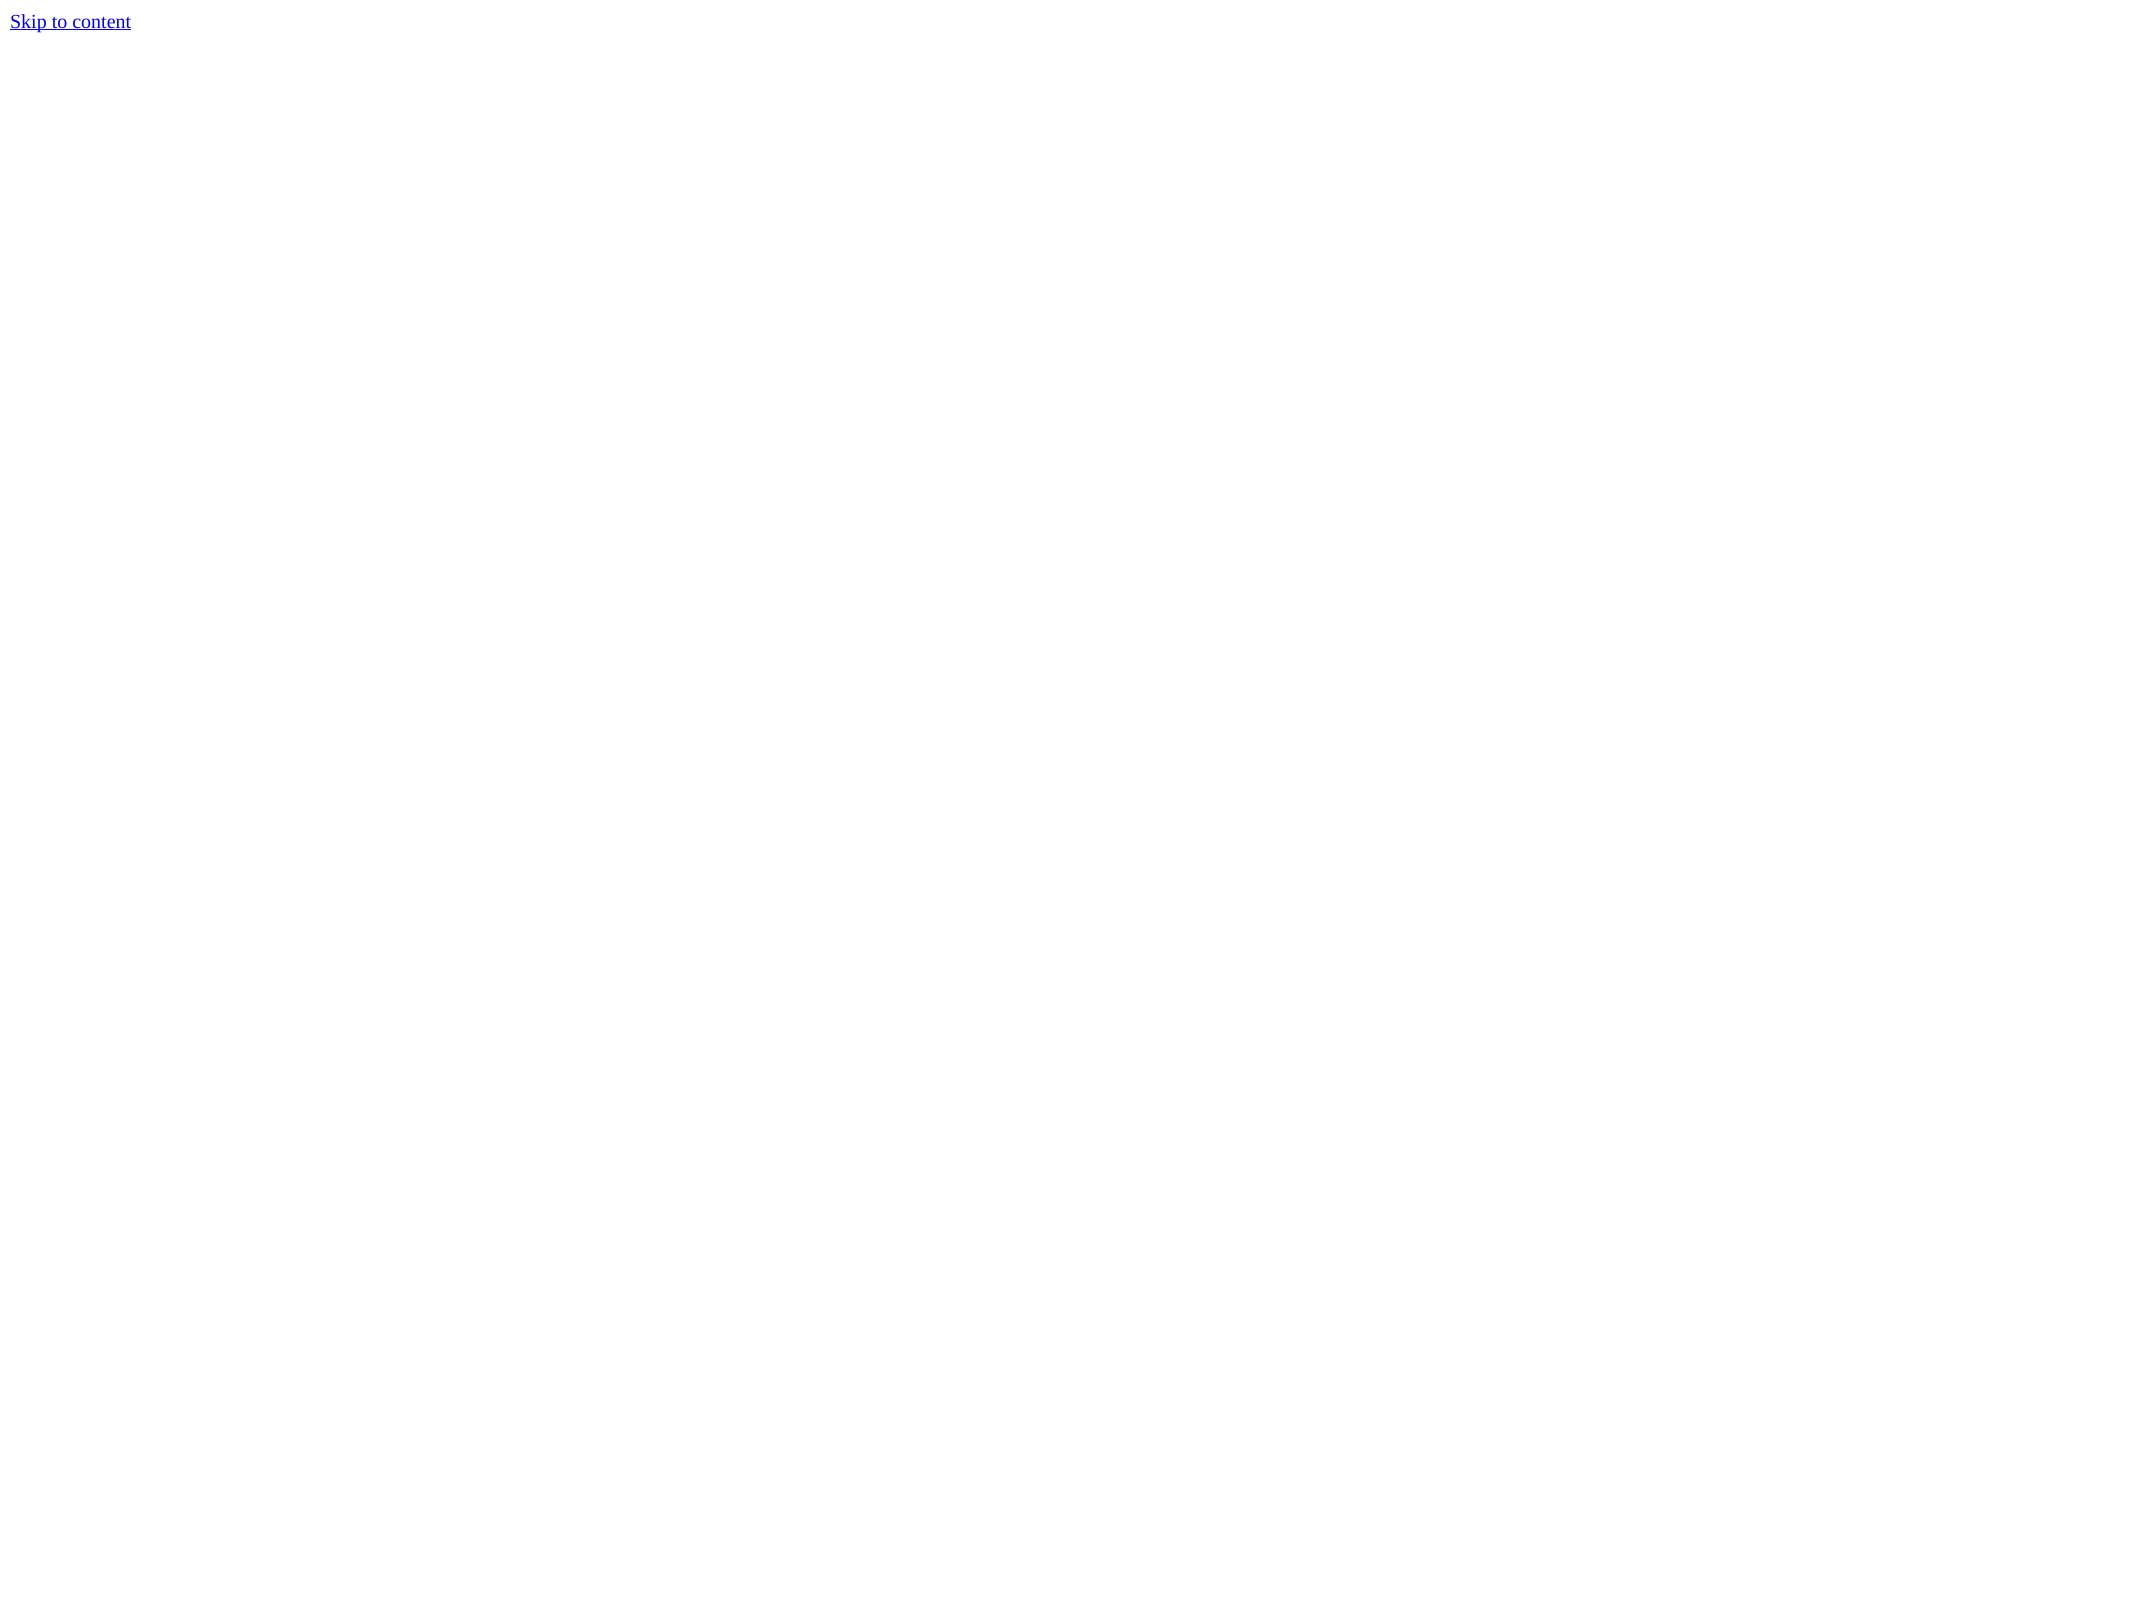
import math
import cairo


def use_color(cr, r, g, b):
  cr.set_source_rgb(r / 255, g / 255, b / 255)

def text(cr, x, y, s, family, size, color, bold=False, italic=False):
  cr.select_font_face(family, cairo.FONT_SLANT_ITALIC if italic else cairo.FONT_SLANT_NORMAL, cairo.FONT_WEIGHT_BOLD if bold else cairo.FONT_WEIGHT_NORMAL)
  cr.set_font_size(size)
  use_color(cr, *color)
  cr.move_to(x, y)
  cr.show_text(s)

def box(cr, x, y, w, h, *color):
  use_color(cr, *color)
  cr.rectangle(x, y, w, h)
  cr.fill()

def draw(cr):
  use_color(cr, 255, 255, 255)
  cr.paint()
  box(cr, 10, 29, 121, 1, 0, 0, 238)
  text(cr, 10, 28, "Skip to content", "Liberation Serif", 20, (0, 0, 238))


surface = cairo.ImageSurface(cairo.FORMAT_RGB24, 2130, 1623)
cr = cairo.Context(surface)
options = cairo.FontOptions()
options.set_hint_metrics(cairo.HINT_METRICS_OFF)
options.set_hint_style(cairo.HINT_STYLE_NONE)
cr.set_font_options(options)
cr.set_miter_limit(4)
draw(cr)
surface.write_to_png("out.png")
